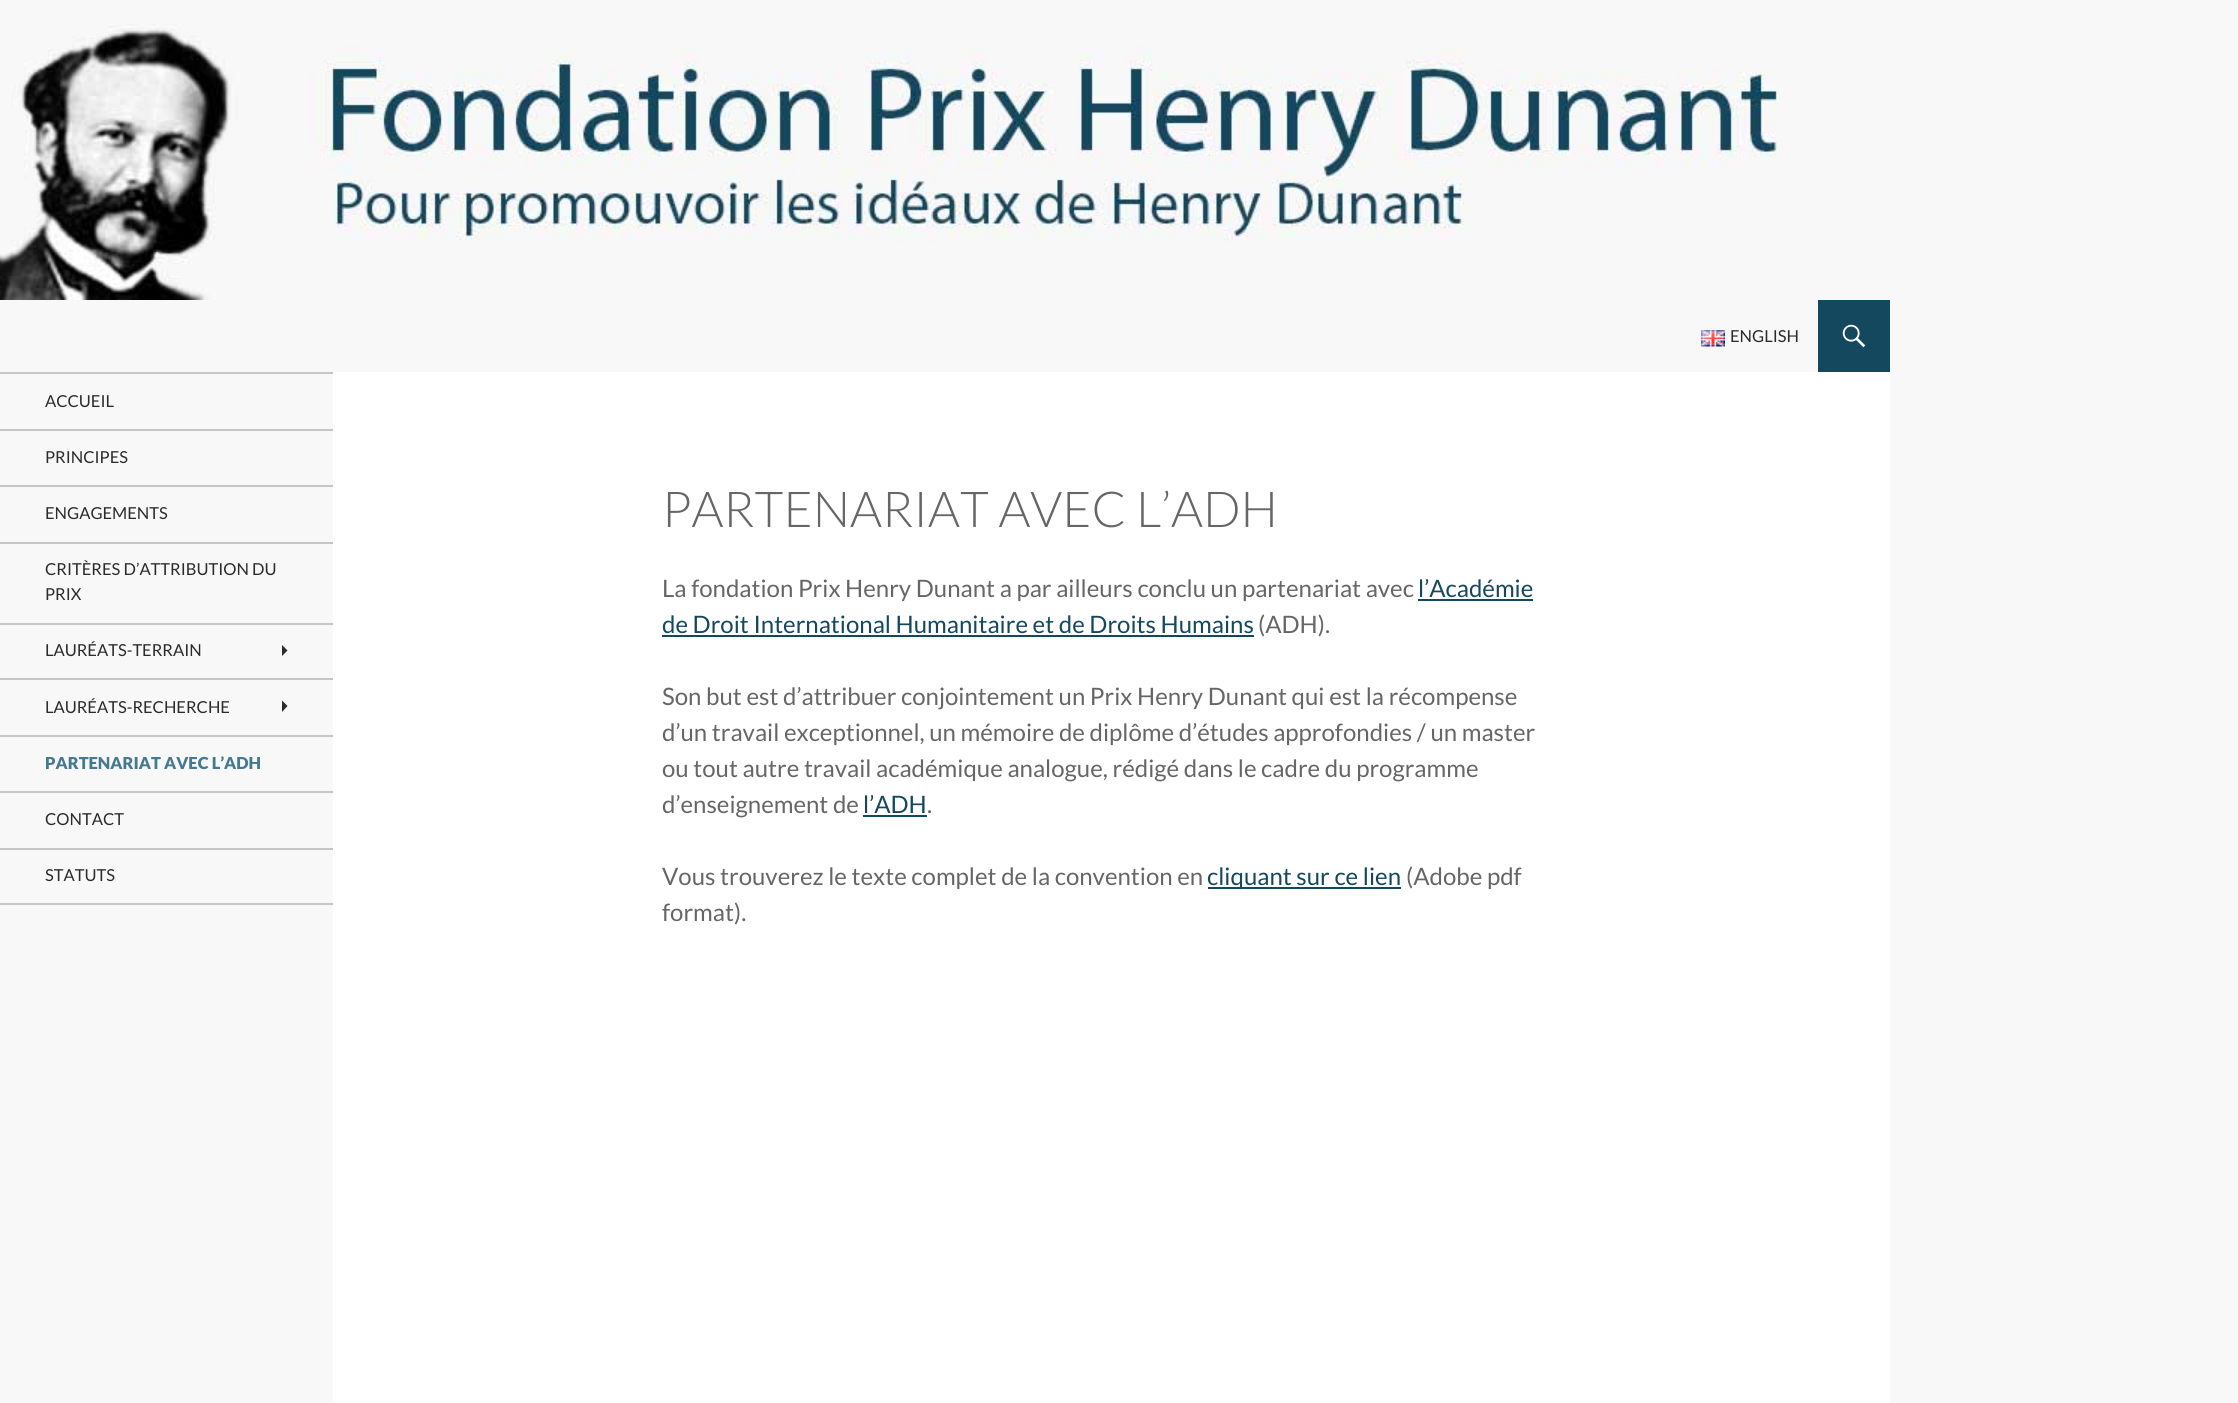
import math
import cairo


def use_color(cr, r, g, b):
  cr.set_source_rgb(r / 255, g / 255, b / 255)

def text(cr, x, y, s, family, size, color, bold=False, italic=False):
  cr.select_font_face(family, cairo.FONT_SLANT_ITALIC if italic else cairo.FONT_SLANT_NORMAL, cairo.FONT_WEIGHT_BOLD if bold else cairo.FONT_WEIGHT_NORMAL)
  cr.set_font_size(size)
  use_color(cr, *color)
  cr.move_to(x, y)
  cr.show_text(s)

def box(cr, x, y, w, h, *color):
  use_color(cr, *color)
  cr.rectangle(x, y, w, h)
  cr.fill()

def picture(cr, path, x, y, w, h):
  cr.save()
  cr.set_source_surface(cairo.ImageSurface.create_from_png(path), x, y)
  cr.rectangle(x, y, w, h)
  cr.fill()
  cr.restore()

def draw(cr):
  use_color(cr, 248, 248, 248)
  cr.paint()
  box(cr, 333, 372, 1557, 1031, 255, 255, 255)
  picture(cr, "img_01.png", 0, 0, 1890, 300)
  picture(cr, "img_02.png", 1701, 330, 24, 17)
  box(cr, 1818, 300, 72, 72, 20, 72, 95)
  picture(cr, "img_03.png", 1842, 324, 24, 24)
  box(cr, 0, 903, 333, 2, 198, 198, 198)
  box(cr, 0, 372, 333, 2, 198, 198, 198)
  box(cr, 0, 429, 333, 2, 198, 198, 198)
  box(cr, 0, 485, 333, 2, 198, 198, 198)
  box(cr, 0, 542, 333, 2, 198, 198, 198)
  box(cr, 0, 623, 333, 2, 198, 198, 198)
  use_color(cr, 43, 43, 43)
  cr.new_path()
  cr.move_to(282, 656)
  cr.line_to(287.5, 650.5)
  cr.line_to(282, 645)
  cr.close_path()
  cr.fill()
  box(cr, 0, 678, 333, 2, 198, 198, 198)
  use_color(cr, 43, 43, 43)
  cr.new_path()
  cr.move_to(282, 712)
  cr.line_to(287.5, 706)
  cr.line_to(282, 700.5)
  cr.close_path()
  cr.fill()
  box(cr, 0, 735, 333, 2, 198, 198, 198)
  box(cr, 0, 791, 333, 2, 198, 198, 198)
  box(cr, 0, 848, 333, 2, 198, 198, 198)
  box(cr, 1418, 599, 115, 2, 20, 72, 95)
  box(cr, 662, 635, 592, 2, 20, 72, 95)
  box(cr, 863, 815, 64, 2, 20, 72, 95)
  box(cr, 1208, 887, 193, 2, 20, 72, 95)
  text(cr, 1730, 342, "ENGLISH", "Lato", 16.5, (43, 43, 43))
  text(cr, 45, 407, "ACCUEIL", "Lato", 16.5, (43, 43, 43))
  text(cr, 45, 463, "PRINCIPES", "Lato", 16.5, (43, 43, 43))
  text(cr, 45, 519, "ENGAGEMENTS", "Lato", 16.5, (43, 43, 43))
  text(cr, 45, 575, "CRITÈRES D’ATTRIBUTION DU", "Lato", 16.5, (43, 43, 43))
  text(cr, 45, 600, "PRIX", "Lato", 16.5, (43, 43, 43))
  text(cr, 45, 656, "LAURÉATS-TERRAIN", "Lato", 16.5, (43, 43, 43))
  text(cr, 45, 713, "LAURÉATS-RECHERCHE", "Lato", 16.5, (43, 43, 43))
  text(cr, 45, 769, "PARTENARIAT AVEC L’ADH", "Lato Black", 16.5, (69, 121, 144))
  text(cr, 45, 825, "CONTACT", "Lato", 16.5, (43, 43, 43))
  text(cr, 45, 881, "STATUTS", "Lato", 16.5, (43, 43, 43))
  text(cr, 662, 527, "PARTENARIAT AVEC L’ADH", "Lato Light", 49.5, (102, 102, 102))
  text(cr, 662, 597, "La fondation Prix Henry Dunant a par ailleurs conclu un partenariat avec", "Lato", 24, (102, 102, 102))
  text(cr, 1418, 597, "l’Académie", "Lato", 24, (20, 72, 95))
  text(cr, 662, 633, "de Droit International Humanitaire et de Droits Humains", "Lato", 24, (20, 72, 95))
  text(cr, 1258, 633, "(ADH).", "Lato", 24, (102, 102, 102))
  text(cr, 662, 705, "Son but est d’attribuer conjointement un Prix Henry Dunant qui est la récompense", "Lato", 24, (102, 102, 102))
  text(cr, 662, 741, "d’un travail exceptionnel, un mémoire de diplôme d’études approfondies / un master", "Lato", 24, (102, 102, 102))
  text(cr, 662, 777, "ou tout autre travail académique analogue, rédigé dans le cadre du programme", "Lato", 24, (102, 102, 102))
  text(cr, 662, 813, "d’enseignement de", "Lato", 24, (102, 102, 102))
  text(cr, 863, 813, "l’ADH", "Lato", 24, (20, 72, 95))
  text(cr, 927, 813, ".", "Lato", 24, (102, 102, 102))
  text(cr, 662, 885, "Vous trouverez le texte complet de la convention en", "Lato", 24, (102, 102, 102))
  text(cr, 1207, 885, "cliquant sur ce lien", "Lato", 24, (20, 72, 95))
  text(cr, 1406, 885, "(Adobe pdf", "Lato", 24, (102, 102, 102))
  text(cr, 662, 921, "format).", "Lato", 24, (102, 102, 102))


surface = cairo.ImageSurface(cairo.FORMAT_RGB24, 2238, 1403)
cr = cairo.Context(surface)
options = cairo.FontOptions()
options.set_hint_metrics(cairo.HINT_METRICS_OFF)
options.set_hint_style(cairo.HINT_STYLE_NONE)
cr.set_font_options(options)
cr.set_miter_limit(4)
draw(cr)
surface.write_to_png("out.png")
